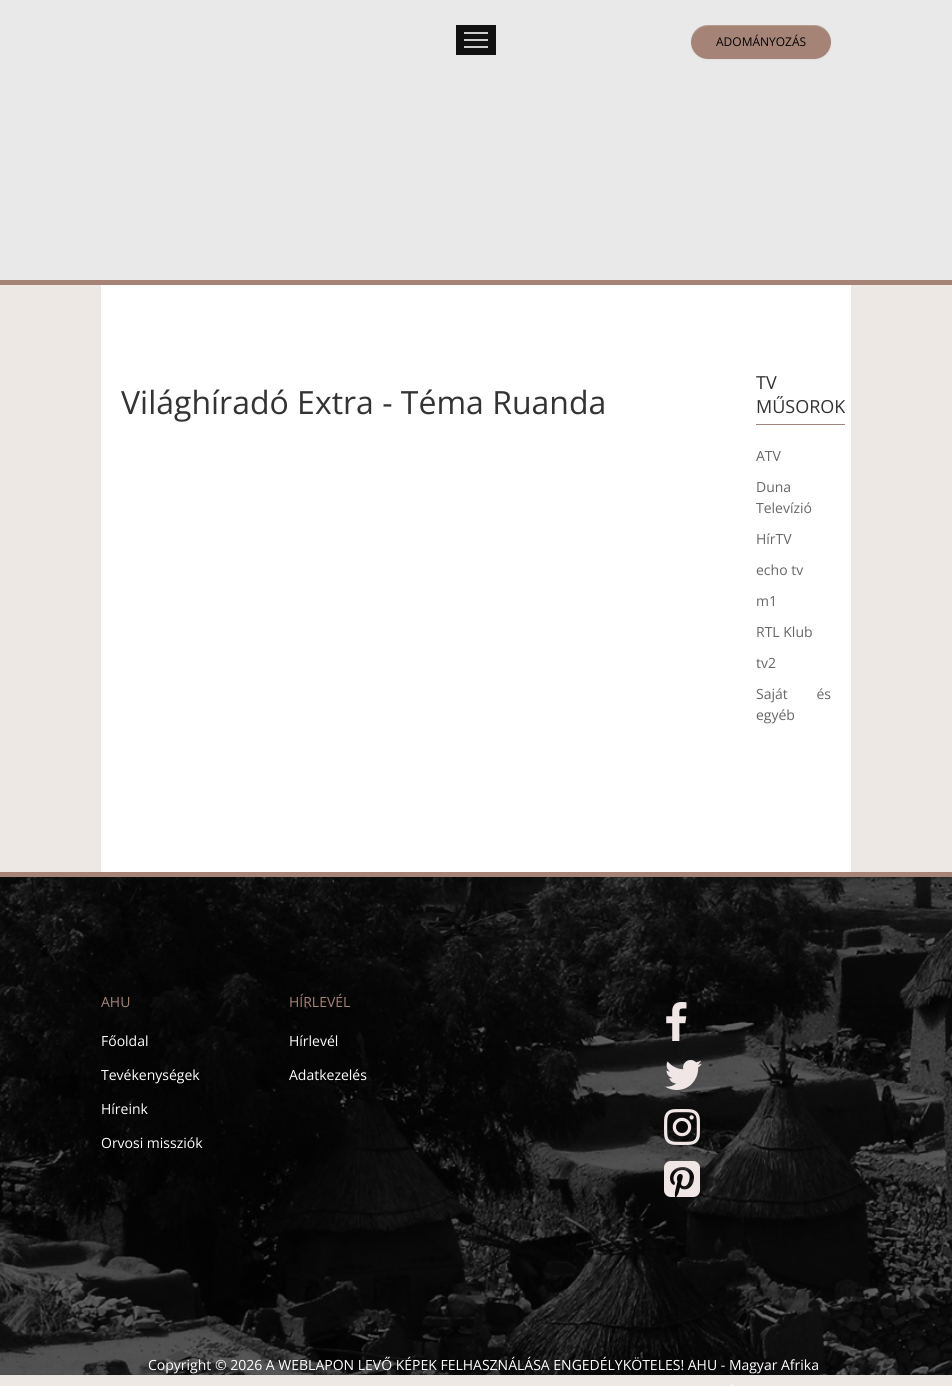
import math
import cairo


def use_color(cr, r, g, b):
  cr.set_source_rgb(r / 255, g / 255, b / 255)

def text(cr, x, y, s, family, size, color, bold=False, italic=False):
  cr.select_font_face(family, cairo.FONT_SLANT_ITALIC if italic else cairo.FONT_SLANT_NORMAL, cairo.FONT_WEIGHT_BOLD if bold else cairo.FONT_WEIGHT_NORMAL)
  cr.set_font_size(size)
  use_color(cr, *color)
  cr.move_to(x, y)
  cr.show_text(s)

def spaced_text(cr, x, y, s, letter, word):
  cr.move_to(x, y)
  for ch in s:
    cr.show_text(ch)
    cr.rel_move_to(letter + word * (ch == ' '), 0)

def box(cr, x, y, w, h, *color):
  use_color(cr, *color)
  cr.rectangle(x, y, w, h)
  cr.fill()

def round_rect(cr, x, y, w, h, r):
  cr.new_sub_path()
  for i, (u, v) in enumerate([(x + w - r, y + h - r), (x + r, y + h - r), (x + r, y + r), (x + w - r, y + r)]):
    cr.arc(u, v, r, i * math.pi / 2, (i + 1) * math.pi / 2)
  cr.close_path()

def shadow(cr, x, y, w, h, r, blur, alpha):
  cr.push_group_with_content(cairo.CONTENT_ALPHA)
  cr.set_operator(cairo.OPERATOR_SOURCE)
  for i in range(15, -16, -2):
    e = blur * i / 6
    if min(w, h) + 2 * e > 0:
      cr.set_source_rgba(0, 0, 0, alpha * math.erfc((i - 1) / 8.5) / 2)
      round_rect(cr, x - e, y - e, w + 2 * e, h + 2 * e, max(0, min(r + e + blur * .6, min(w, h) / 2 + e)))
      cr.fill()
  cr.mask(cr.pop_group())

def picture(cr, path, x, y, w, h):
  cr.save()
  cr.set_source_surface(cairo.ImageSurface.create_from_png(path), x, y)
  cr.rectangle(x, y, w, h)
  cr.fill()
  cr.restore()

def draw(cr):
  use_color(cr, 238, 232, 228)
  cr.paint()
  box(cr, 0, 280, 952, 5, 165, 132, 119)
  box(cr, 0, 0, 952, 280, 233, 233, 233)
  picture(cr, "img_01.png", 456, 25, 40, 30)
  use_color(cr, 0, 0, 0)
  shadow(cr, 691, 26, 140, 34, 17, 1, 0.05)
  use_color(cr, 165, 132, 119)
  round_rect(cr, 691, 25, 140, 34, 17)
  cr.fill()
  cr.set_source_rgba(1, 1, 1, 0.2)
  cr.new_path()
  cr.move_to(708, 26)
  cr.line_to(814, 26)
  cr.curve_to(823, 26, 831, 34, 831, 43)
  cr.line_to(831, 42)
  cr.curve_to(831, 33, 823, 25, 814, 25)
  cr.line_to(708, 25)
  cr.curve_to(699, 25, 691, 33, 691, 42)
  cr.line_to(691, 43)
  cr.curve_to(691, 34, 699, 26, 708, 26)
  cr.close_path()
  cr.fill()
  box(cr, 101, 285, 750, 587, 255, 255, 255)
  box(cr, 756, 400, 75, 1, 241, 241, 241)
  box(cr, 756, 424, 89, 1, 165, 132, 119)
  picture(cr, "img_02.png", 0, 877, 952, 498)
  box(cr, 0, 872, 952, 5, 165, 132, 119)
  picture(cr, "img_03.png", 666, 1002, 21, 39)
  picture(cr, "img_04.png", 665, 1060, 37, 30)
  picture(cr, "img_05.png", 664, 1109, 36, 36)
  picture(cr, "img_06.png", 664, 1161, 36, 36)
  text(cr, 716, 46, "ADOMÁNYOZÁS", "Open Sans", 12, (0, 0, 0))
  text(cr, 121, 414, "Világhíradó Extra - Téma Ruanda", "Open Sans", 32, (51, 51, 51))
  text(cr, 756, 389, "TV", "Open Sans", 18, (51, 51, 51))
  text(cr, 756, 413, "MŰSOROK", "Open Sans", 18, (51, 51, 51))
  text(cr, 756, 461, "ATV", "Open Sans", 14, (102, 102, 102))
  text(cr, 756, 492, "Duna", "Open Sans", 14, (102, 102, 102))
  text(cr, 756, 513, "Televízió", "Open Sans", 14, (102, 102, 102))
  text(cr, 756, 544, "HírTV", "Open Sans", 14, (102, 102, 102))
  text(cr, 756, 575, "echo tv", "Open Sans", 14, (102, 102, 102))
  text(cr, 756, 606, "m1", "Open Sans", 14, (102, 102, 102))
  text(cr, 756, 637, "RTL Klub", "Open Sans", 14, (102, 102, 102))
  text(cr, 756, 668, "tv2", "Open Sans", 14, (102, 102, 102))
  spaced_text(cr, 756, 699, "Saját és", 0, 25)
  text(cr, 756, 720, "egyéb", "Open Sans", 14, (102, 102, 102))
  text(cr, 101, 1007, "AHU", "Open Sans", 14, (165, 132, 119))
  text(cr, 101, 1046, "Főoldal", "Open Sans", 14, (255, 255, 255))
  text(cr, 101, 1080, "Tevékenységek", "Open Sans", 14, (255, 255, 255))
  text(cr, 101, 1114, "Híreink", "Open Sans", 14, (255, 255, 255))
  text(cr, 101, 1148, "Orvosi missziók", "Open Sans", 14, (255, 255, 255))
  text(cr, 289, 1007, "HÍRLEVÉL", "Open Sans", 14, (165, 132, 119))
  text(cr, 289, 1046, "Hírlevél", "Open Sans", 14, (255, 255, 255))
  text(cr, 289, 1080, "Adatkezelés", "Open Sans", 14, (255, 255, 255))
  text(cr, 148, 1370, "Copyright © 2026 A WEBLAPON LEVŐ KÉPEK FELHASZNÁLÁSA ENGEDÉLYKÖTELES! AHU - Magyar Afrika", "Open Sans", 14, (255, 255, 255))
  text(cr, 730, 1389, "-", "Open Sans", 14, (255, 255, 255))


surface = cairo.ImageSurface(cairo.FORMAT_RGB24, 952, 1386)
cr = cairo.Context(surface)
options = cairo.FontOptions()
options.set_hint_metrics(cairo.HINT_METRICS_OFF)
options.set_hint_style(cairo.HINT_STYLE_NONE)
cr.set_font_options(options)
cr.set_miter_limit(4)
draw(cr)
surface.write_to_png("out.png")
